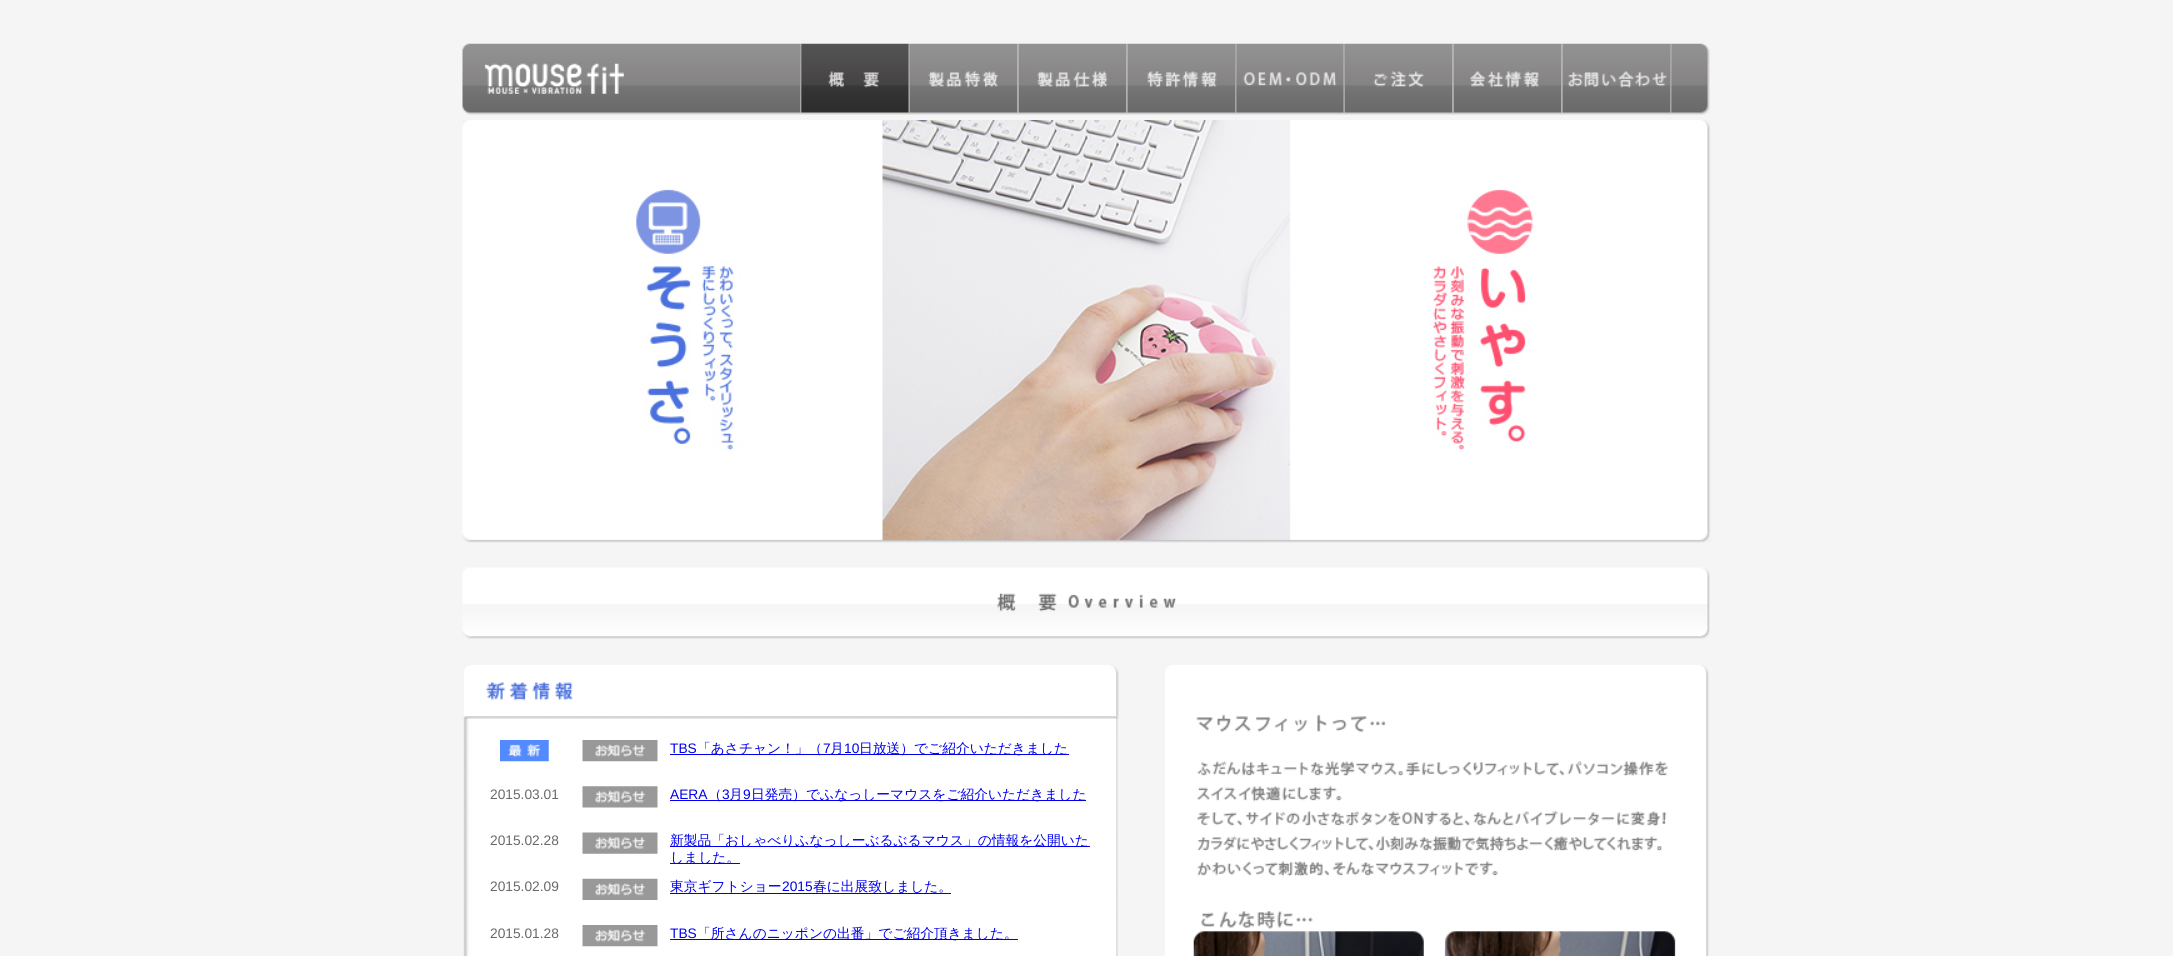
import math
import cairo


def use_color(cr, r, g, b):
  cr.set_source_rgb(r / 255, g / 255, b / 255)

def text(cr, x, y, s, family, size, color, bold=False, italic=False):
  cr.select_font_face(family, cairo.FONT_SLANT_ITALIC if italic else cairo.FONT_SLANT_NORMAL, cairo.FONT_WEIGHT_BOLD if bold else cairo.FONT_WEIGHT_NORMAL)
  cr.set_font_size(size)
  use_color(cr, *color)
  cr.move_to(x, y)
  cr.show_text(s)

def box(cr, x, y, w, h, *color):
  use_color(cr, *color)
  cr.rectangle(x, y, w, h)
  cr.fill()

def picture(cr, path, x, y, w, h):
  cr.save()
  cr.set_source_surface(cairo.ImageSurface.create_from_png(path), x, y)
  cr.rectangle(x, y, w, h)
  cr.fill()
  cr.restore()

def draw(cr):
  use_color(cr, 245, 245, 245)
  cr.paint()
  picture(cr, "img_01.png", 462, 43, 338, 72)
  picture(cr, "img_02.png", 800, 43, 2, 72)
  picture(cr, "img_03.png", 801, 43, 108, 72)
  picture(cr, "img_04.png", 908, 43, 2, 72)
  picture(cr, "img_05.png", 910, 43, 108, 72)
  picture(cr, "img_06.png", 1017, 43, 2, 72)
  picture(cr, "img_07.png", 1018, 43, 109, 72)
  picture(cr, "img_08.png", 1126, 43, 2, 72)
  picture(cr, "img_09.png", 1127, 43, 108, 72)
  picture(cr, "img_02.png", 1235, 43, 2, 72)
  picture(cr, "img_10.png", 1236, 43, 108, 72)
  picture(cr, "img_11.png", 1343, 43, 2, 72)
  picture(cr, "img_12.png", 1345, 43, 108, 72)
  picture(cr, "img_06.png", 1452, 43, 2, 72)
  picture(cr, "img_13.png", 1453, 43, 109, 72)
  picture(cr, "img_08.png", 1561, 43, 2, 72)
  picture(cr, "img_14.png", 1562, 43, 108, 72)
  picture(cr, "img_02.png", 1670, 43, 2, 72)
  picture(cr, "img_15.png", 1671, 43, 39, 72)
  picture(cr, "img_16.png", 462, 120, 1249, 423)
  picture(cr, "img_17.png", 462, 567, 1248, 72)
  picture(cr, "img_18.png", 463, 717, 656, 239)
  picture(cr, "img_19.png", 464, 665, 655, 54)
  picture(cr, "img_20.png", 500, 740, 49, 22)
  picture(cr, "img_21.png", 582, 740, 76, 22)
  box(cr, 670, 754, 399, 1, 0, 0, 238)
  picture(cr, "img_22.png", 582, 786, 76, 22)
  box(cr, 670, 800, 416, 1, 0, 0, 238)
  picture(cr, "img_23.png", 582, 832, 76, 22)
  box(cr, 670, 846, 420, 1, 0, 0, 238)
  box(cr, 670, 863, 70, 1, 0, 0, 238)
  picture(cr, "img_24.png", 582, 878, 76, 22)
  box(cr, 670, 893, 281, 1, 0, 0, 238)
  picture(cr, "img_21.png", 582, 925, 76, 22)
  box(cr, 670, 939, 348, 1, 0, 0, 238)
  picture(cr, "img_25.png", 1165, 665, 544, 291)
  text(cr, 670, 753, "TBS", "Liberation Sans", 13.75, (0, 0, 238))
  text(cr, 697, 753, "「あさチャン！」（", "WenQuanYi Zen Hei Medium", 13.75, (0, 0, 238))
  text(cr, 823, 753, "7", "Liberation Sans", 13.75, (0, 0, 238))
  text(cr, 830, 753, "月", "WenQuanYi Zen Hei Medium", 13.75, (0, 0, 238))
  text(cr, 844, 753, "10", "Liberation Sans", 13.75, (0, 0, 238))
  text(cr, 859, 753, "日放送）でご紹介いただきました", "WenQuanYi Zen Hei Medium", 13.75, (0, 0, 238))
  text(cr, 490, 799, "2015.03.01", "Liberation Sans", 13.75, (105, 105, 105))
  text(cr, 670, 799, "AERA", "Liberation Sans", 13.75, (0, 0, 238))
  text(cr, 708, 799, "（", "WenQuanYi Zen Hei Medium", 13.75, (0, 0, 238))
  text(cr, 722, 799, "3", "Liberation Sans", 13.75, (0, 0, 238))
  text(cr, 729, 799, "月", "WenQuanYi Zen Hei Medium", 13.75, (0, 0, 238))
  text(cr, 743, 799, "9", "Liberation Sans", 13.75, (0, 0, 238))
  text(cr, 751, 799, "日発売）でふなっしーマウスをご紹介いただきました", "WenQuanYi Zen Hei Medium", 13.75, (0, 0, 238))
  text(cr, 490, 845, "2015.02.28", "Liberation Sans", 13.75, (105, 105, 105))
  text(cr, 670, 845, "新製品「おしゃべりふなっしーぶるぶるマウス」の情報を公開いた", "WenQuanYi Zen Hei Medium", 13.75, (0, 0, 238))
  text(cr, 670, 862, "しました。", "WenQuanYi Zen Hei Medium", 13.75, (0, 0, 238))
  text(cr, 490, 891, "2015.02.09", "Liberation Sans", 13.75, (105, 105, 105))
  text(cr, 670, 891, "東京ギフトショー", "WenQuanYi Zen Hei Medium", 13.75, (0, 0, 238))
  text(cr, 782, 891, "2015", "Liberation Sans", 13.75, (0, 0, 238))
  text(cr, 813, 891, "春に出展致しました。", "WenQuanYi Zen Hei Medium", 13.75, (0, 0, 238))
  text(cr, 490, 938, "2015.01.28", "Liberation Sans", 13.75, (105, 105, 105))
  text(cr, 670, 938, "TBS", "Liberation Sans", 13.75, (0, 0, 238))
  text(cr, 697, 938, "「所さんのニッポンの出番」でご紹介頂きました。", "WenQuanYi Zen Hei Medium", 13.75, (0, 0, 238))


surface = cairo.ImageSurface(cairo.FORMAT_RGB24, 2173, 956)
cr = cairo.Context(surface)
options = cairo.FontOptions()
options.set_hint_metrics(cairo.HINT_METRICS_OFF)
options.set_hint_style(cairo.HINT_STYLE_NONE)
cr.set_font_options(options)
cr.set_miter_limit(4)
draw(cr)
surface.write_to_png("out.png")
